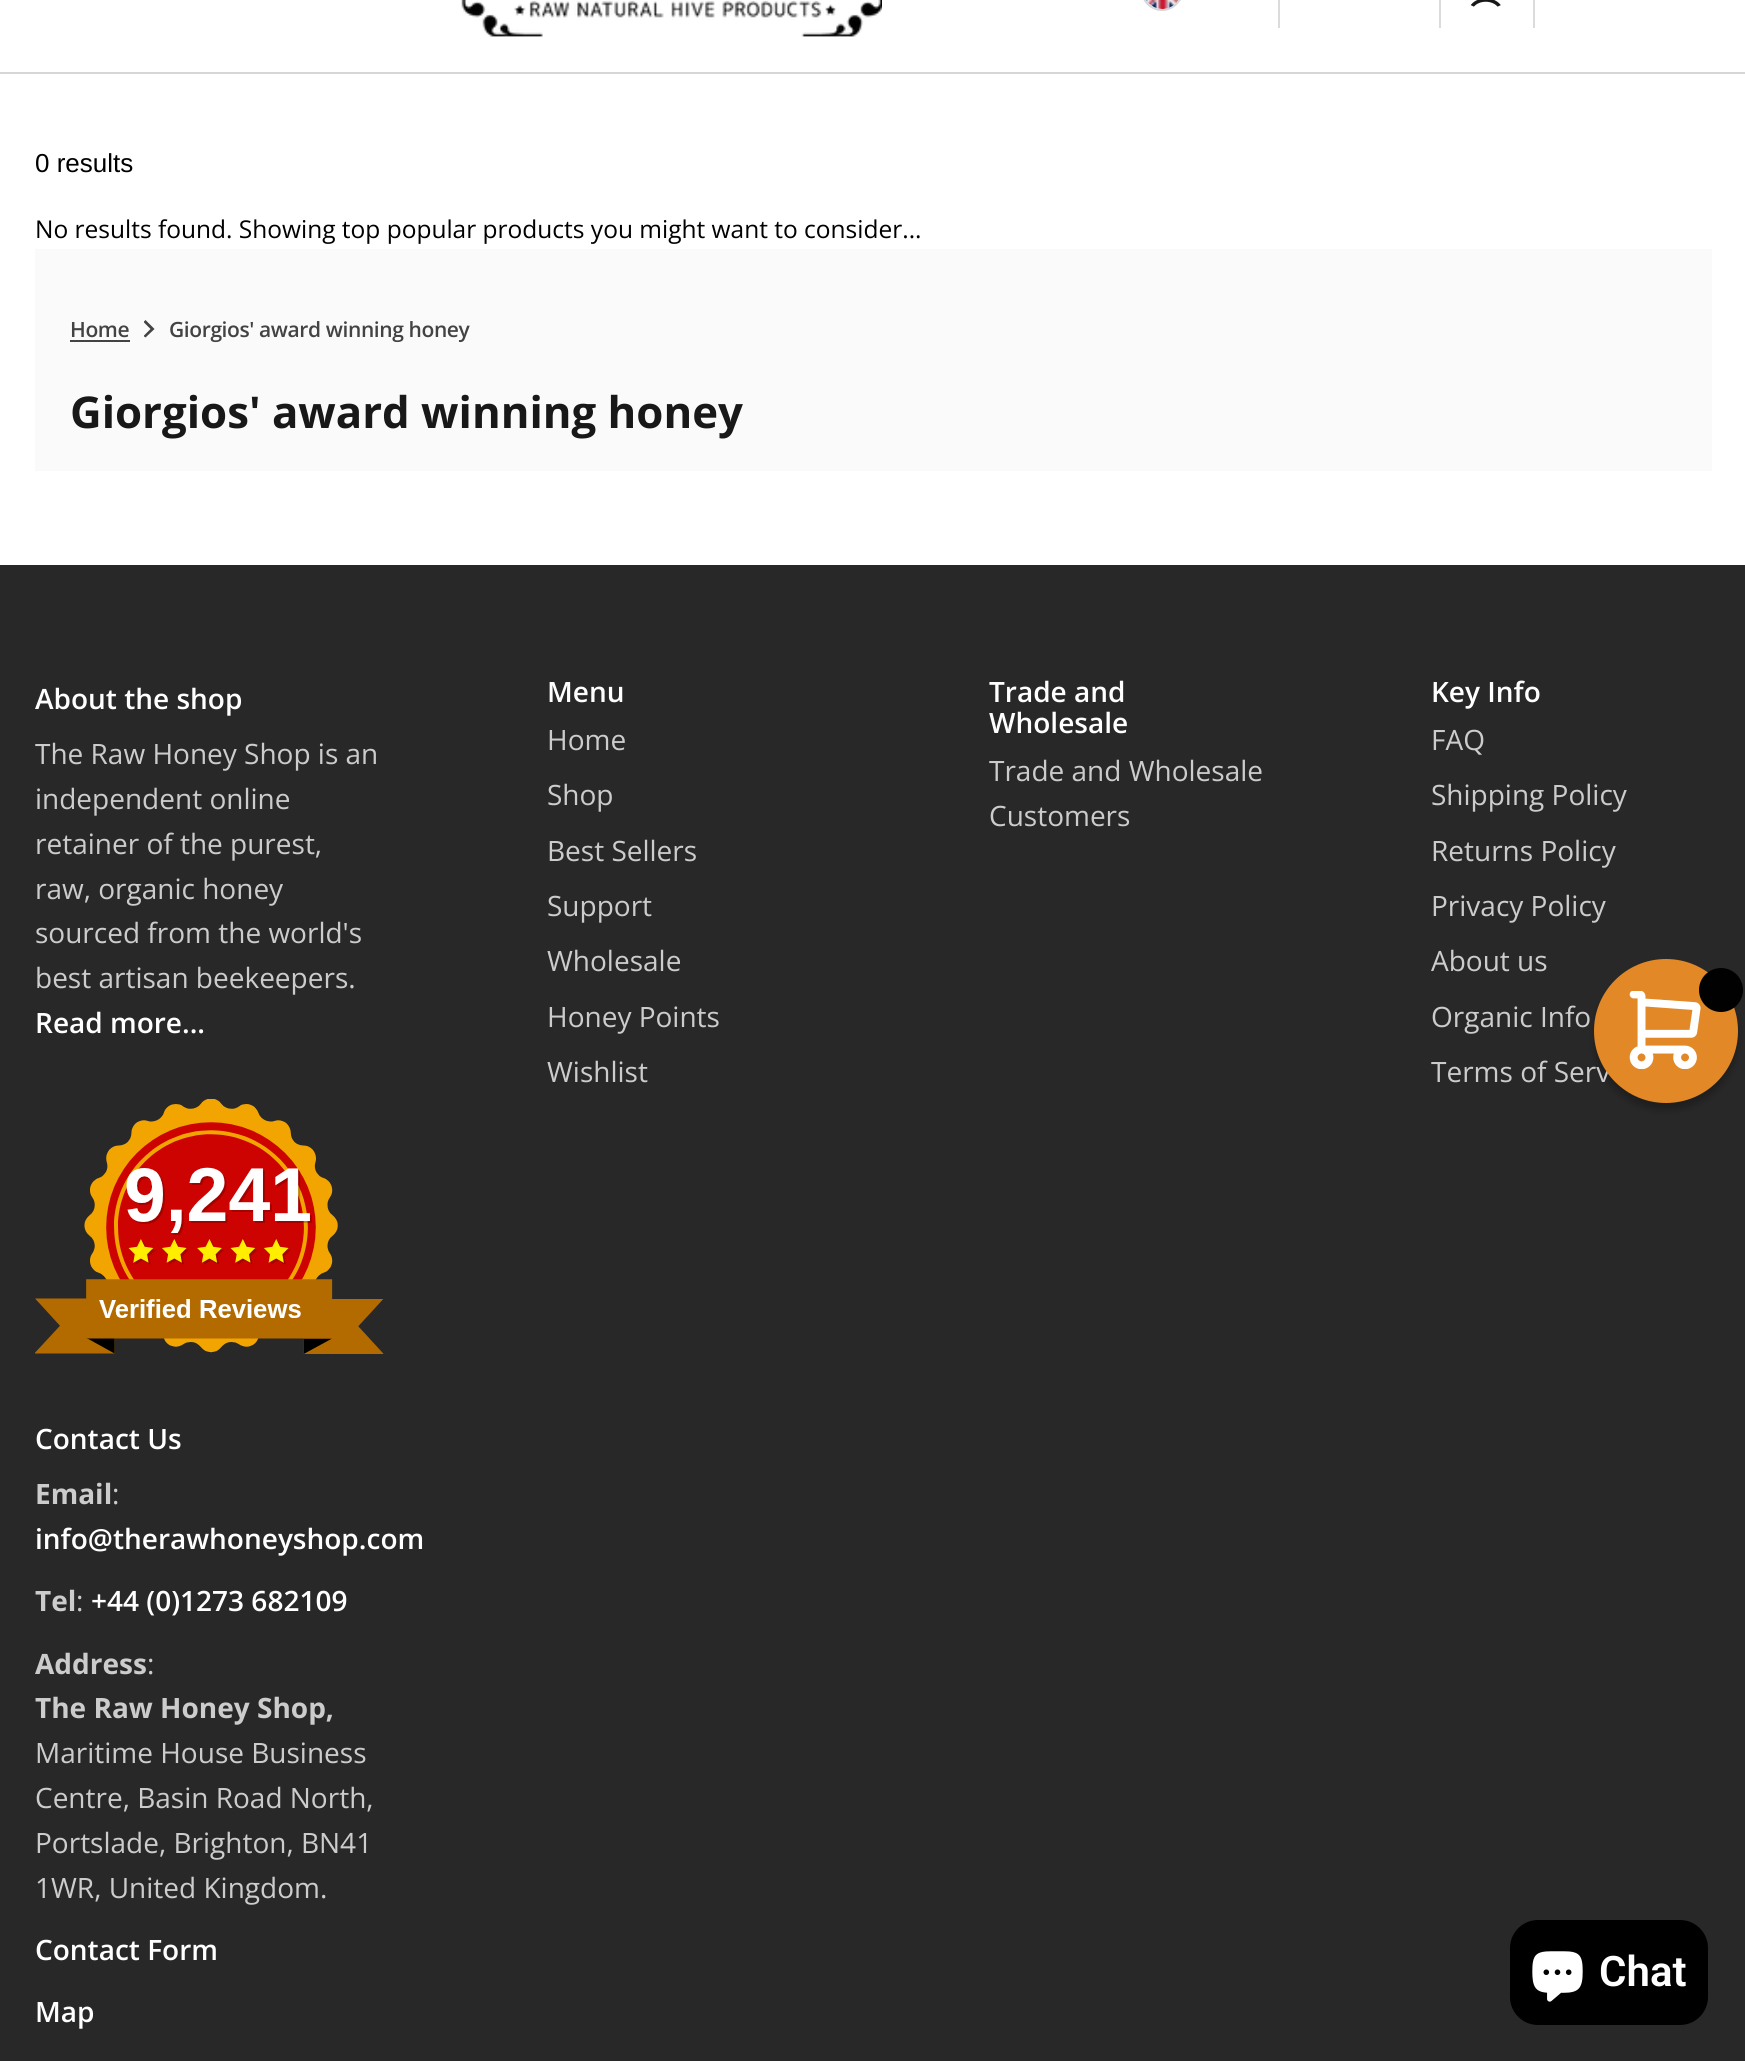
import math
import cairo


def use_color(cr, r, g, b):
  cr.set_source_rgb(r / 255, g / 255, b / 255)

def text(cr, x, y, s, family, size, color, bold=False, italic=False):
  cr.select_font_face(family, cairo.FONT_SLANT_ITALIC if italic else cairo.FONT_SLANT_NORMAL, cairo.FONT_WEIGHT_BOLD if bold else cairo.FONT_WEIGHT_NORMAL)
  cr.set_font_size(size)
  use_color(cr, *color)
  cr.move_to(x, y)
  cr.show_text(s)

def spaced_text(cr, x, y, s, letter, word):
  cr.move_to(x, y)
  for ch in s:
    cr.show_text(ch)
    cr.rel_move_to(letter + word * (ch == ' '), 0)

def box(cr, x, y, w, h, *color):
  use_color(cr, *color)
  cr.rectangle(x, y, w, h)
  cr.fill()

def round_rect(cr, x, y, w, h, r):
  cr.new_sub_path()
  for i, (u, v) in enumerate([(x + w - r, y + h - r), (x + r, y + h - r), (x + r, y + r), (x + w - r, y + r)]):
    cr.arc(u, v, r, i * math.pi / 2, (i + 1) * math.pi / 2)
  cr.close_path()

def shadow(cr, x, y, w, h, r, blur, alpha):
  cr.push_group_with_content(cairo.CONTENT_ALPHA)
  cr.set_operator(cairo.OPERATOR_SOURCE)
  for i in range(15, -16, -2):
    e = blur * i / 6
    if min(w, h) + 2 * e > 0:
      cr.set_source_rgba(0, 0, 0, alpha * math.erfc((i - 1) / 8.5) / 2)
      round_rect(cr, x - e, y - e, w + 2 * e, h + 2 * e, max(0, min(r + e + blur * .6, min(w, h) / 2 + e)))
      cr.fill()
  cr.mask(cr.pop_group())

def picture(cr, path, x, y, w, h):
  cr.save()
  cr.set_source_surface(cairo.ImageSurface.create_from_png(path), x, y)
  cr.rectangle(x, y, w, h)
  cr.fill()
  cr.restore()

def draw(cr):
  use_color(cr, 255, 255, 255)
  cr.paint()
  picture(cr, "img_01.png", 461, 0, 421, 37)
  box(cr, 1278, 0, 2, 28, 219, 219, 219)
  picture(cr, "img_02.png", 1145, 0, 36, 9)
  round_rect(cr, 1142, -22, 40, 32, 20)
  use_color(cr, 214, 214, 214)
  cr.stroke()
  box(cr, 1439, 0, 2, 28, 219, 219, 219)
  box(cr, 1533, 0, 2, 28, 219, 219, 219)
  picture(cr, "img_03.png", 1470, 0, 31, 7)
  box(cr, 0, 72, 1745, 2, 214, 214, 214)
  box(cr, 35, 249, 1677, 222, 250, 250, 250)
  box(cr, 70, 340, 60, 2, 67, 67, 67)
  cr.save()
  cr.rectangle(144, 319, 12, 19)
  cr.clip()
  cr.new_path()
  cr.move_to(150.5, 329)
  cr.line_to(143.5, 322)
  cr.line_to(145.5, 320)
  cr.line_to(154.5, 329)
  cr.line_to(145.5, 337.5)
  cr.line_to(143.5, 336)
  cr.close_path()
  cr.fill()
  cr.restore()
  box(cr, 0, 565, 1745, 1496, 40, 40, 40)
  picture(cr, "img_04.png", 35, 1099, 349, 255)
  use_color(cr, 0, 0, 0)
  shadow(cr, 1594, 966, 144, 144, 72, 3.5, 0.25)
  use_color(cr, 0, 0, 0)
  round_rect(cr, 1510, 1920, 198, 105, 28)
  cr.fill()
  picture(cr, "img_06.png", 1532, 1951, 51, 51)
  text(cr, 35, 172, "0 results", "Liberation Sans", 26, (0, 0, 0))
  text(cr, 35, 238, "No results found. Showing top popular products you might want to consider...", "Open Sans", 24.5, (0, 0, 0))
  cr.select_font_face("Open Sans SemiBold")
  cr.set_font_size(21)
  use_color(cr, 67, 67, 67)
  spaced_text(cr, 70, 337, "Home", -0.4, 0)
  spaced_text(cr, 169, 337, "Giorgios' award winning honey", -0.4, 0)
  text(cr, 70, 428, "Giorgios' award winning honey", "Open Sans", 43.75, (24, 24, 24), bold=True)
  text(cr, 35, 709, "About the shop", "Open Sans SemiBold", 28, (255, 255, 255))
  text(cr, 35, 764, "The Raw Honey Shop is an", "Open Sans", 28, (204, 204, 204))
  text(cr, 35, 809, "independent online", "Open Sans", 28, (204, 204, 204))
  text(cr, 35, 854, "retainer of the purest,", "Open Sans", 28, (204, 204, 204))
  text(cr, 35, 899, "raw, organic honey", "Open Sans", 28, (204, 204, 204))
  text(cr, 35, 943, "sourced from the world's", "Open Sans", 28, (204, 204, 204))
  text(cr, 35, 988, "best artisan beekeepers.", "Open Sans", 28, (204, 204, 204))
  text(cr, 35, 1033, "Read more...", "Open Sans SemiBold", 28, (255, 255, 255))
  text(cr, 547, 702, "Menu", "Open Sans SemiBold", 28, (255, 255, 255))
  text(cr, 547, 750, "Home", "Open Sans", 28, (204, 204, 204))
  text(cr, 547, 805, "Shop", "Open Sans", 28, (204, 204, 204))
  text(cr, 547, 861, "Best Sellers", "Open Sans", 28, (204, 204, 204))
  text(cr, 547, 916, "Support", "Open Sans", 28, (204, 204, 204))
  text(cr, 547, 971, "Wholesale", "Open Sans", 28, (204, 204, 204))
  text(cr, 547, 1027, "Honey Points", "Open Sans", 28, (204, 204, 204))
  text(cr, 547, 1082, "Wishlist", "Open Sans", 28, (204, 204, 204))
  text(cr, 989, 702, "Trade and", "Open Sans SemiBold", 28, (255, 255, 255))
  text(cr, 989, 733, "Wholesale", "Open Sans SemiBold", 28, (255, 255, 255))
  text(cr, 989, 781, "Trade and Wholesale", "Open Sans", 28, (204, 204, 204))
  text(cr, 989, 826, "Customers", "Open Sans", 28, (204, 204, 204))
  text(cr, 1431, 702, "Key Info", "Open Sans SemiBold", 28, (255, 255, 255))
  text(cr, 1431, 750, "FAQ", "Open Sans", 28, (204, 204, 204))
  text(cr, 1431, 805, "Shipping Policy", "Open Sans", 28, (204, 204, 204))
  text(cr, 1431, 861, "Returns Policy", "Open Sans", 28, (204, 204, 204))
  text(cr, 1431, 916, "Privacy Policy", "Open Sans", 28, (204, 204, 204))
  text(cr, 1431, 971, "About us", "Open Sans", 28, (204, 204, 204))
  text(cr, 1431, 1027, "Organic Info", "Open Sans", 28, (204, 204, 204))
  text(cr, 1431, 1082, "Terms of Serv", "Open Sans", 28, (204, 204, 204))
  text(cr, 35, 1449, "Contact Us", "Open Sans SemiBold", 28, (255, 255, 255))
  text(cr, 35, 1504, "Email", "Open Sans", 28, (204, 204, 204), bold=True)
  text(cr, 112, 1504, ":", "Open Sans", 28, (204, 204, 204))
  text(cr, 35, 1549, "info@therawhoneyshop.com", "Open Sans SemiBold", 28, (255, 255, 255))
  text(cr, 35, 1611, "Tel", "Open Sans", 28, (204, 204, 204), bold=True)
  text(cr, 76, 1611, ":", "Open Sans", 28, (204, 204, 204))
  text(cr, 91, 1611, "+44 (0)1273 682109", "Open Sans SemiBold", 28, (255, 255, 255))
  text(cr, 35, 1674, "Address", "Open Sans", 28, (204, 204, 204), bold=True)
  text(cr, 147, 1674, ":", "Open Sans", 28, (204, 204, 204))
  text(cr, 35, 1718, "The Raw Honey Shop,", "Open Sans", 28, (204, 204, 204), bold=True)
  text(cr, 35, 1763, "Maritime House Business", "Open Sans", 28, (204, 204, 204))
  text(cr, 35, 1808, "Centre, Basin Road North,", "Open Sans", 28, (204, 204, 204))
  text(cr, 35, 1853, "Portslade, Brighton, BN41", "Open Sans", 28, (204, 204, 204))
  text(cr, 35, 1898, "1WR, United Kingdom.", "Open Sans", 28, (204, 204, 204))
  text(cr, 35, 1960, "Contact Form", "Open Sans SemiBold", 28, (255, 255, 255))
  text(cr, 35, 2022, "Map", "Open Sans SemiBold", 28, (255, 255, 255))
  use_color(cr, 226, 136, 38)
  cr.new_path()
  cr.arc(1666, 1031, 72, 0, 2 * math.pi)
  cr.fill()
  use_color(cr, 1, 1, 1)
  cr.arc(1721, 990, 22, 0, 2 * math.pi)
  cr.fill()
  picture(cr, "img_05.png", 1629, 991, 72, 78)
  text(cr, 1599, 1986, "Chat", "Roboto SemiBold", 42, (255, 255, 255))


surface = cairo.ImageSurface(cairo.FORMAT_RGB24, 1745, 2061)
cr = cairo.Context(surface)
options = cairo.FontOptions()
options.set_hint_metrics(cairo.HINT_METRICS_OFF)
options.set_hint_style(cairo.HINT_STYLE_NONE)
cr.set_font_options(options)
cr.set_miter_limit(4)
draw(cr)
surface.write_to_png("out.png")
